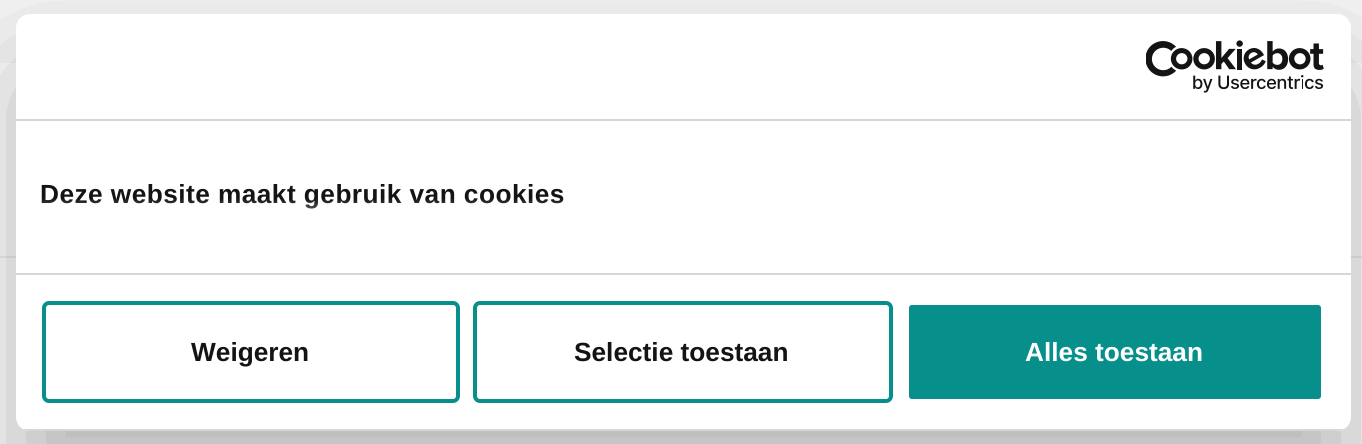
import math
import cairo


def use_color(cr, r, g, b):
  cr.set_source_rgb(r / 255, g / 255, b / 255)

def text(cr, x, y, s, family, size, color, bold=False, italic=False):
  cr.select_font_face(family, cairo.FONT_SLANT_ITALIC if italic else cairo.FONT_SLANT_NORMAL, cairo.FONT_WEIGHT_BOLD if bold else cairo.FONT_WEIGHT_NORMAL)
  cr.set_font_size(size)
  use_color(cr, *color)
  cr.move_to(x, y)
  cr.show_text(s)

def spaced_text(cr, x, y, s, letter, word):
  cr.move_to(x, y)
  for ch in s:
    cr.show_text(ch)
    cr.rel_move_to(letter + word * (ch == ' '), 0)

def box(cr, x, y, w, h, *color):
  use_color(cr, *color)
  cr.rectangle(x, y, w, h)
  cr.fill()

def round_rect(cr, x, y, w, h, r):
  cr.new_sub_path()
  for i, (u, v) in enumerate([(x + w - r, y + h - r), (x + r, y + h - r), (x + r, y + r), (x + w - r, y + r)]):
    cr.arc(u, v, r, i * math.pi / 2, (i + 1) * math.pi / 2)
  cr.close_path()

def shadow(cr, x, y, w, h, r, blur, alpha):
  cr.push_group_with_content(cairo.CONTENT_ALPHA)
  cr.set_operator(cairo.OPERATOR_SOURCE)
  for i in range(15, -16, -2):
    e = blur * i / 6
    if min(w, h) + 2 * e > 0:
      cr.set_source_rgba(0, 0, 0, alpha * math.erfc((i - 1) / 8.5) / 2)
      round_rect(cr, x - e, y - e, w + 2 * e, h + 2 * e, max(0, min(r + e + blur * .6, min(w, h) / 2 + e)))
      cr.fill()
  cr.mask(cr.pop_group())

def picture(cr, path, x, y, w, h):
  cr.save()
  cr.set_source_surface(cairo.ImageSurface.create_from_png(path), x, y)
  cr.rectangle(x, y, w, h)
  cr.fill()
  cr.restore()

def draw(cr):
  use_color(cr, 255, 255, 255)
  cr.paint()
  box(cr, 0, 0, 1362, 63, 246, 246, 246)
  box(cr, 0, 256, 1362, 2, 238, 238, 238)
  use_color(cr, 0, 0, 0)
  shadow(cr, 16, 70, 1335, 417, 14, 59.5, 0.3)
  use_color(cr, 255, 255, 255)
  round_rect(cr, 16, 14, 1335, 417, 14)
  cr.fill()
  box(cr, 16, 119, 1335, 2, 214, 214, 214)
  picture(cr, "img_01.png", 1146, 40, 178, 53)
  box(cr, 16, 273, 1335, 2, 214, 214, 214)
  cr.save()
  round_rect(cr, 16, 14, 1335, 417, 14)
  cr.clip()
  box(cr, 16, 429, 1335, 2, 214, 214, 214)
  cr.restore()
  round_rect(cr, 44, 303, 414, 98, 5)
  use_color(cr, 7, 143, 139)
  cr.set_line_width(4)
  cr.stroke()
  round_rect(cr, 475, 303, 416, 98, 5)
  cr.stroke()
  round_rect(cr, 907, 303, 416, 98, 5)
  cr.fill_preserve()
  use_color(cr, 255, 255, 255)
  cr.stroke()
  cr.select_font_face("Liberation Sans", cairo.FONT_SLANT_NORMAL, cairo.FONT_WEIGHT_BOLD)
  cr.set_font_size(26.25)
  use_color(cr, 20, 20, 20)
  spaced_text(cr, 40, 203, "Deze website maakt gebruik van cookies", 0.45, 0)
  gradient = cairo.LinearGradient(671, 273, 671, 198)
  gradient.add_color_stop_rgba(0, 1, 1, 1, 1)
  gradient.add_color_stop_rgba(0.5, 1, 1, 1, 0.8)
  gradient.add_color_stop_rgba(1, 1, 1, 1, 0)
  cr.set_source(gradient)
  cr.rectangle(42, 199, 521, 10)
  cr.fill()
  text(cr, 191, 361, "Weigeren", "Liberation Sans", 26.25, (20, 20, 20), bold=True)
  text(cr, 574, 361, "Selectie toestaan", "Liberation Sans", 26.25, (20, 20, 20), bold=True)
  text(cr, 1025, 361, "Alles toestaan", "Liberation Sans", 26.25, (255, 255, 255), bold=True)


surface = cairo.ImageSurface(cairo.FORMAT_RGB24, 1362, 444)
cr = cairo.Context(surface)
options = cairo.FontOptions()
options.set_hint_metrics(cairo.HINT_METRICS_OFF)
options.set_hint_style(cairo.HINT_STYLE_NONE)
cr.set_font_options(options)
cr.set_miter_limit(4)
draw(cr)
surface.write_to_png("out.png")
